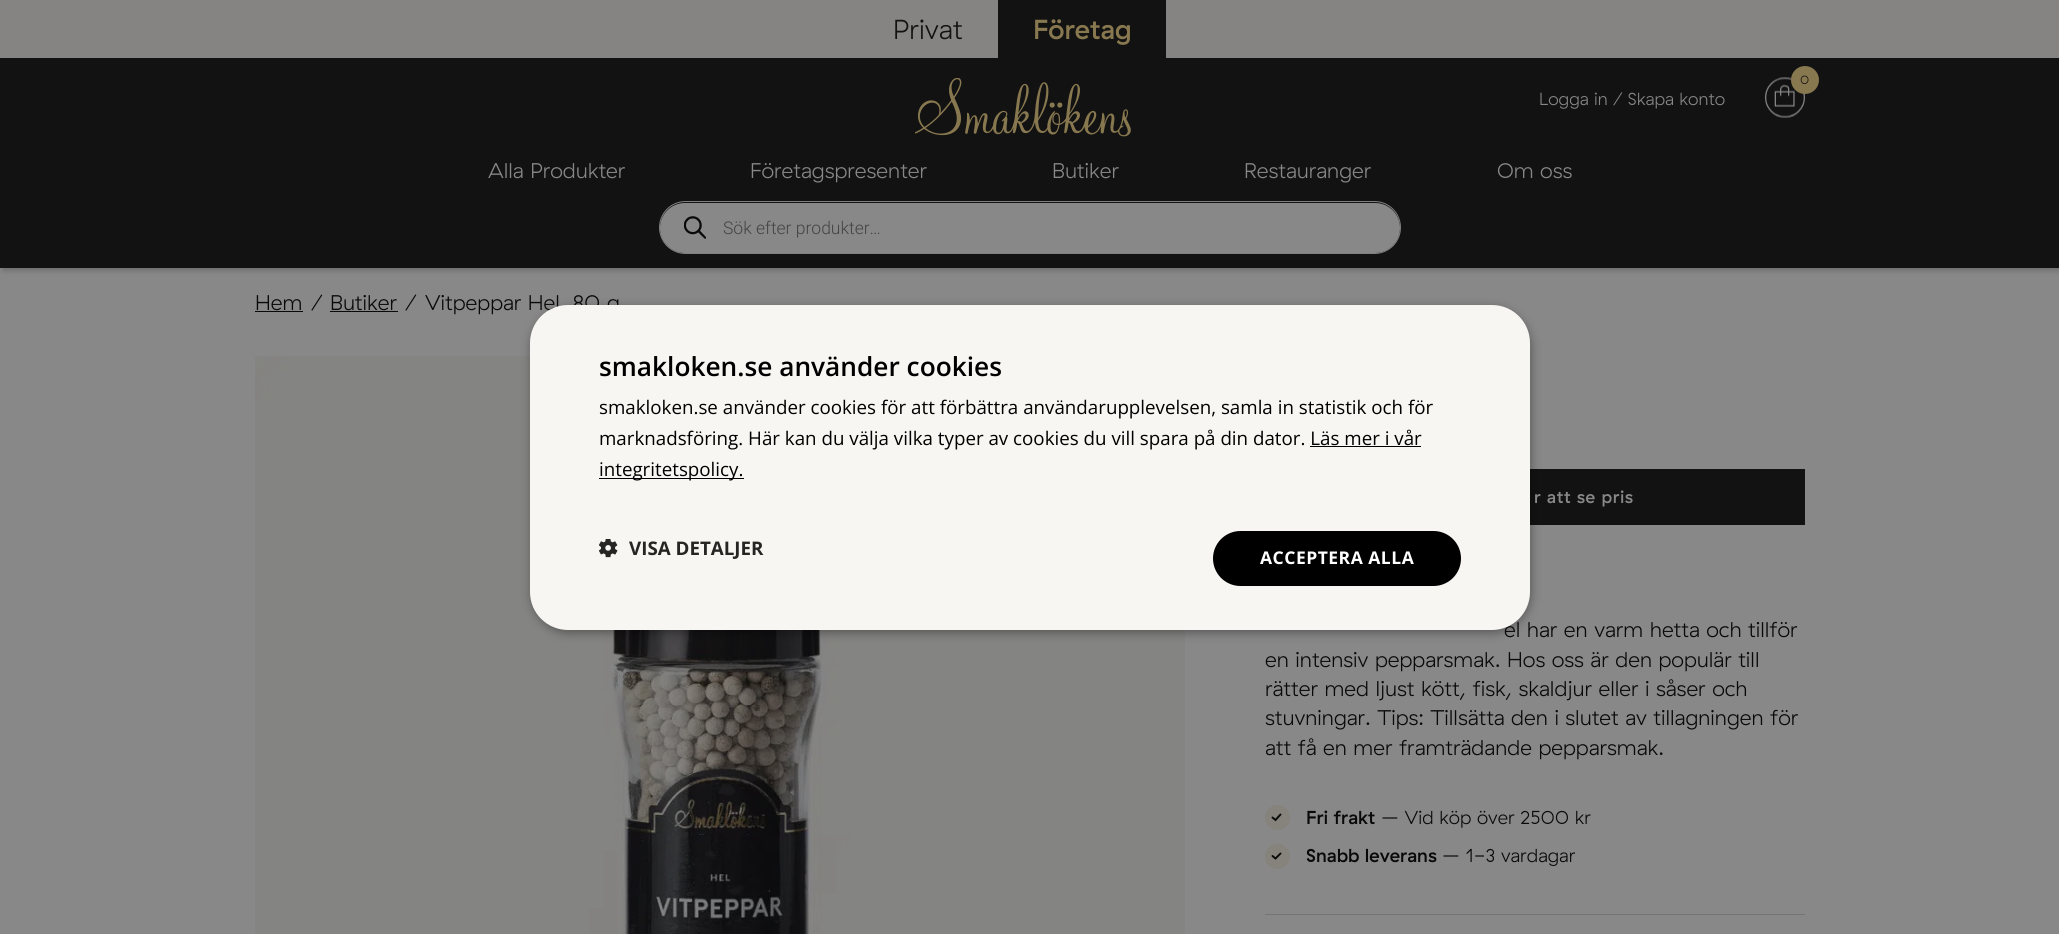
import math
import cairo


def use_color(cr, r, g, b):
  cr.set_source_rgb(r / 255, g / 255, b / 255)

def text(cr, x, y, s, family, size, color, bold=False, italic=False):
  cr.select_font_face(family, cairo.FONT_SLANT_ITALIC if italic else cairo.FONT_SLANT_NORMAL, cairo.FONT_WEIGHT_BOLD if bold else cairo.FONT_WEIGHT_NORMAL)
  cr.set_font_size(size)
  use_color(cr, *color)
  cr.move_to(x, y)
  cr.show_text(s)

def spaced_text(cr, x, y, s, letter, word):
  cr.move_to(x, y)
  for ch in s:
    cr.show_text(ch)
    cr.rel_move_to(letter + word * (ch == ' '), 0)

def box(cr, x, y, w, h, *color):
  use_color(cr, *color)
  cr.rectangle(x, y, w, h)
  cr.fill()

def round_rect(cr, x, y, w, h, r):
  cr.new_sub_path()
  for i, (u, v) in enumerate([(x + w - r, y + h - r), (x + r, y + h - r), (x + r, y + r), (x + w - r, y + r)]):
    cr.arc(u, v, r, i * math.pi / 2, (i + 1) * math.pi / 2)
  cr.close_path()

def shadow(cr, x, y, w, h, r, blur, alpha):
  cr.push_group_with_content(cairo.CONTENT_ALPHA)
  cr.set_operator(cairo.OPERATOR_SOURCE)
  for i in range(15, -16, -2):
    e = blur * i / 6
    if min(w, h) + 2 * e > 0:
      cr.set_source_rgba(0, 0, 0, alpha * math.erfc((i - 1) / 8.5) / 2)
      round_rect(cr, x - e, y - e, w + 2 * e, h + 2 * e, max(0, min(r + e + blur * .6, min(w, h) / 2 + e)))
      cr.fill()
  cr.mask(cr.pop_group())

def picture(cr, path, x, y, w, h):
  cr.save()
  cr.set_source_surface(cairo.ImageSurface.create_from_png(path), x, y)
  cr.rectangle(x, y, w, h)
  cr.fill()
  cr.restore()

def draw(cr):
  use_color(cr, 136, 136, 136)
  cr.paint()
  use_color(cr, 9, 9, 9)
  shadow(cr, 3, 3, 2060, 267, 0, 3, 0.25)
  box(cr, 0, 58, 2059, 210, 18, 18, 18)
  box(cr, 0, 0, 2059, 58, 133, 132, 130)
  box(cr, 998, 0, 168, 58, 18, 18, 18)
  picture(cr, "img_01.png", 915, 78, 216, 59)
  picture(cr, "img_02.png", 1765, 77, 40, 41)
  use_color(cr, 136, 120, 79)
  cr.arc(1805, 80, 14, 0, 2 * math.pi)
  cr.fill()
  round_rect(cr, 659.5, 201.5, 741, 52, 26)
  use_color(cr, 128, 128, 128)
  cr.set_line_width(1)
  cr.stroke()
  use_color(cr, 136, 136, 136)
  round_rect(cr, 661.5, 204.5, 737, 47, 23.5)
  cr.fill_preserve()
  cr.set_line_width(3)
  cr.stroke()
  picture(cr, "img_03.png", 684, 216, 22, 23)
  box(cr, 255, 311, 48, 1, 9, 9, 9)
  box(cr, 330, 311, 68, 1, 9, 9, 9)
  picture(cr, "img_05.png", 255, 356, 930, 578)
  box(cr, 1530, 469, 275, 56, 18, 18, 18)
  use_color(cr, 0, 0, 0)
  shadow(cr, 531, 308, 1000, 325, 38, 5, 0.35)
  use_color(cr, 134, 130, 124)
  cr.arc(1277.5, 817.5, 12.5, 0, 2 * math.pi)
  cr.fill()
  cr.arc(1277.5, 856.5, 12.5, 0, 2 * math.pi)
  cr.fill()
  cr.new_path()
  cr.move_to(1272.5, 817.5)
  cr.line_to(1275.5, 820)
  cr.line_to(1280.5, 814.5)
  cr.move_to(1272.5, 856)
  cr.line_to(1275.5, 858.5)
  cr.line_to(1280.5, 853.5)
  use_color(cr, 9, 9, 9)
  cr.set_line_width(1.9)
  cr.set_line_cap(cairo.LINE_CAP_ROUND)
  cr.stroke()
  box(cr, 1265, 914, 540, 1, 117, 117, 117)
  text(cr, 893, 39, "Privat", "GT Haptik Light", 27.5, (18, 18, 18))
  text(cr, 1033, 39, "Företag", "GT Haptik Medium", 27.5, (136, 120, 79))
  text(cr, 1539, 105, "Logga in / Skapa konto", "GT Haptik Light", 17.5, (136, 136, 136))
  text(cr, 1800, 84, "0", "GT Haptik Light", 12, (18, 18, 18))
  text(cr, 488, 178, "Alla Produkter", "GT Haptik Light", 21.25, (136, 136, 136))
  text(cr, 750, 178, "Företagspresenter", "GT Haptik Light", 21.25, (136, 136, 136))
  text(cr, 1052, 178, "Butiker", "GT Haptik Light", 21.25, (136, 136, 136))
  text(cr, 1244, 178, "Restauranger", "GT Haptik Light", 21.25, (136, 136, 136))
  text(cr, 1497, 178, "Om oss", "GT Haptik Light", 21.25, (136, 136, 136))
  text(cr, 723, 234, "Sök efter produkter…", "Roboto Light", 17.5, (68, 68, 68))
  text(cr, 255, 310, "Hem", "GT Haptik Light", 21.25, (9, 9, 9))
  text(cr, 311, 310, "/", "GT Haptik Light", 21.25, (9, 9, 9))
  text(cr, 330, 310, "Butiker", "GT Haptik Light", 21.25, (9, 9, 9))
  text(cr, 405, 310, "/", "GT Haptik Light", 21.25, (9, 9, 9))
  text(cr, 425, 310, "Vitpeppar Hel, 80 g", "GT Haptik Light", 21.25, (9, 9, 9))
  cr.select_font_face("GT Haptik Medium")
  cr.set_font_size(17.5)
  use_color(cr, 136, 136, 136)
  spaced_text(cr, 1534, 503, "r att se pris", 0.6, 0)
  text(cr, 1504, 637, "el har en varm hetta och tillför", "GT Haptik Light", 21.25, (9, 9, 9))
  use_color(cr, 248, 246, 242)
  round_rect(cr, 530, 305, 1000, 325, 38)
  cr.fill()
  text(cr, 599, 376, "smakloken.se använder cookies", "Open Sans SemiBold", 26.25, (0, 0, 0))
  picture(cr, "img_04.png", 599, 539, 19, 19)
  text(cr, 629, 555, "VISA DETALJER", "Open Sans", 18.75, (37, 37, 36), bold=True)
  use_color(cr, 0, 0, 0)
  round_rect(cr, 1213, 531, 248, 55, 27.5)
  cr.fill()
  cr.set_font_size(17.5)
  use_color(cr, 255, 255, 255)
  spaced_text(cr, 1260, 564, "ACCEPTERA ALLA", 0.5, 0)
  box(cr, 599, 478, 145, 1, 0, 0, 0)
  text(cr, 599, 476, "integritetspolicy.", "Open Sans", 18.75, (0, 0, 0))
  box(cr, 1310, 446, 111, 1, 0, 0, 0)
  text(cr, 599, 445, "marknadsföring. Här kan du välja vilka typer av cookies du vill spara på din dator. Läs mer i vår", "Open Sans", 18.75, (0, 0, 0))
  text(cr, 599, 414, "smakloken.se använder cookies för att förbättra användarupplevelsen, samla in statistik och för", "Open Sans", 18.75, (0, 0, 0))
  text(cr, 1265, 667, "en intensiv pepparsmak. Hos oss är den populär till", "GT Haptik Light", 21.25, (9, 9, 9))
  text(cr, 1265, 696, "rätter med ljust kött, fisk, skaldjur eller i såser och", "GT Haptik Light", 21.25, (9, 9, 9))
  text(cr, 1265, 725, "stuvningar. Tips: Tillsätta den i slutet av tillagningen för", "GT Haptik Light", 21.25, (9, 9, 9))
  text(cr, 1265, 755, "att få en mer framträdande pepparsmak.", "GT Haptik Light", 21.25, (9, 9, 9))
  text(cr, 1306, 824, "Fri frakt", "GT Haptik Medium", 18.75, (9, 9, 9))
  text(cr, 1381, 824, "– Vid köp över 2500 kr", "GT Haptik Light", 18.75, (9, 9, 9))
  text(cr, 1306, 862, "Snabb leverans", "GT Haptik Medium", 18.75, (9, 9, 9))
  text(cr, 1442, 862, "– 1-3 vardagar", "GT Haptik Light", 18.75, (9, 9, 9))


surface = cairo.ImageSurface(cairo.FORMAT_RGB24, 2059, 934)
cr = cairo.Context(surface)
options = cairo.FontOptions()
options.set_hint_metrics(cairo.HINT_METRICS_OFF)
options.set_hint_style(cairo.HINT_STYLE_NONE)
cr.set_font_options(options)
cr.set_miter_limit(4)
draw(cr)
surface.write_to_png("out.png")
